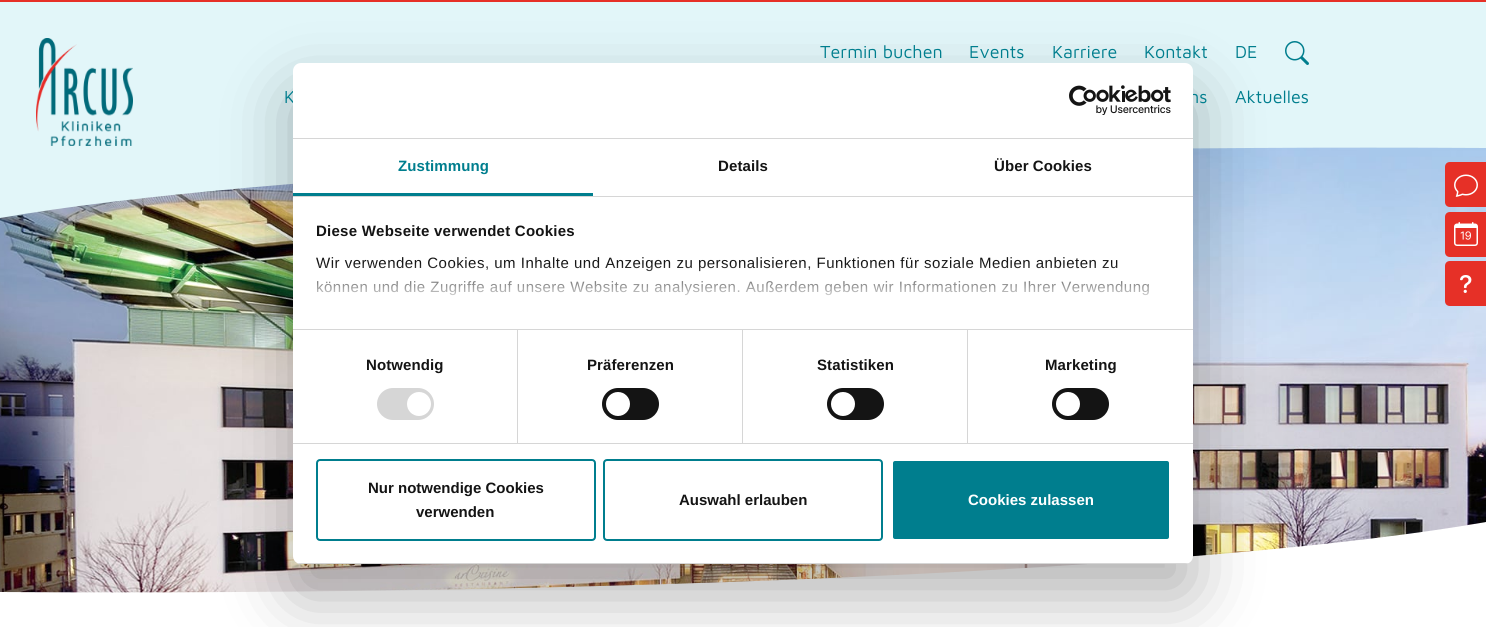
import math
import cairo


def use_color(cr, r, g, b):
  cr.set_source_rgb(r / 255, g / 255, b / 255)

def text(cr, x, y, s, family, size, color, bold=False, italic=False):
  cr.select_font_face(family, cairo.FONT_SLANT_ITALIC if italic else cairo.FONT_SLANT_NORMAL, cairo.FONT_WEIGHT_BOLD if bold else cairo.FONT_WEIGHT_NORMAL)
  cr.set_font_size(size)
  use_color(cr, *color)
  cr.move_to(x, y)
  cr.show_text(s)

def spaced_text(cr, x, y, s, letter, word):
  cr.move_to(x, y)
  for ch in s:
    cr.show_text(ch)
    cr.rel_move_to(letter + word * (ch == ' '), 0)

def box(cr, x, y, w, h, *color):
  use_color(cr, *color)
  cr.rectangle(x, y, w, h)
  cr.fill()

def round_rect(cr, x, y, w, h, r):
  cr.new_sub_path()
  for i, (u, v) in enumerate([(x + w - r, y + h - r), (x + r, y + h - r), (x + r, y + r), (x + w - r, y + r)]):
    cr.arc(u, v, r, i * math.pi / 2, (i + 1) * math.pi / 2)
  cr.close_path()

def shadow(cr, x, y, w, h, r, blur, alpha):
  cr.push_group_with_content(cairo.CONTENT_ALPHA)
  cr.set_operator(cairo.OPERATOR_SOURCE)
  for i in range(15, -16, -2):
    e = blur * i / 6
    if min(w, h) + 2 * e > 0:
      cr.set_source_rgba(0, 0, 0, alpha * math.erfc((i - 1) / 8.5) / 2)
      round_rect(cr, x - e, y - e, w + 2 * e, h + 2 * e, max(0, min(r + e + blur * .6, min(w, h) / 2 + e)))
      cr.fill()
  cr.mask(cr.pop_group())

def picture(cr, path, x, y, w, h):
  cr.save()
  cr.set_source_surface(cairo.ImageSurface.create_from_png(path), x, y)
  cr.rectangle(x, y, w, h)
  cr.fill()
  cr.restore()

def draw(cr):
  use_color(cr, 255, 255, 255)
  cr.paint()
  box(cr, 0, 0, 1486, 2, 230, 48, 39)
  box(cr, 0, 2, 1486, 144, 226, 246, 249)
  picture(cr, "img_01.png", 36, 38, 97, 108)
  picture(cr, "img_02.png", 1285, 41, 24, 24)
  picture(cr, "img_03.png", 0, 147, 1486, 446)
  use_color(cr, 230, 48, 39)
  cr.new_path()
  cr.move_to(1450, 162)
  cr.line_to(1486, 162)
  cr.line_to(1486, 207)
  cr.line_to(1450, 207)
  cr.curve_to(1447, 207, 1445, 205, 1445, 202)
  cr.line_to(1445, 167)
  cr.curve_to(1445, 164, 1447, 162, 1450, 162)
  cr.close_path()
  cr.fill()
  picture(cr, "img_04.png", 1454, 174, 24, 23)
  cr.new_path()
  cr.move_to(1450, 212)
  cr.line_to(1486, 212)
  cr.line_to(1486, 257)
  cr.line_to(1450, 257)
  cr.curve_to(1447, 257, 1445, 255, 1445, 252)
  cr.line_to(1445, 217)
  cr.curve_to(1445, 214, 1447, 212, 1450, 212)
  cr.close_path()
  cr.fill()
  use_color(cr, 226, 246, 249)
  cr.new_path()
  cr.move_to(1486, 146)
  cr.line_to(1486, 148)
  cr.curve_to(858, 144, 262, 172, 0, 218)
  cr.line_to(0, 146)
  cr.close_path()
  cr.fill()
  use_color(cr, 255, 255, 255)
  cr.new_path()
  cr.move_to(1486, 522)
  cr.curve_to(1224, 568, 628, 596, 0, 592)
  cr.line_to(0, 594)
  cr.line_to(1486, 594)
  cr.close_path()
  cr.fill()
  picture(cr, "img_05.png", 1454, 222, 24, 24)
  use_color(cr, 230, 48, 39)
  cr.new_path()
  cr.move_to(1450, 261)
  cr.line_to(1486, 261)
  cr.line_to(1486, 306)
  cr.line_to(1450, 306)
  cr.curve_to(1447, 306, 1445, 304, 1445, 301)
  cr.line_to(1445, 266)
  cr.curve_to(1445, 263, 1447, 261, 1450, 261)
  cr.close_path()
  cr.fill()
  picture(cr, "img_06.png", 1460, 275, 12, 18)
  use_color(cr, 0, 0, 0)
  shadow(cr, 293, 95, 900, 501, 8, 34, 0.3)
  text(cr, 820, 58, "Termin buchen", "Maven Pro", 18, (0, 126, 142))
  text(cr, 969, 58, "Events", "Maven Pro", 18, (0, 126, 142))
  text(cr, 1052, 58, "Karriere", "Maven Pro", 18, (0, 126, 142))
  text(cr, 1144, 58, "Kontakt", "Maven Pro", 18, (0, 126, 142))
  text(cr, 1235, 58, "DE", "Maven Pro", 18, (0, 126, 142))
  text(cr, 284, 103, "K", "Maven Pro", 18, (0, 126, 142))
  text(cr, 1189, 103, "ns", "Maven Pro", 18, (0, 126, 142))
  text(cr, 1235, 103, "Aktuelles", "Maven Pro", 18, (0, 126, 142))
  use_color(cr, 255, 255, 255)
  round_rect(cr, 293, 63, 900, 501, 8)
  cr.fill()
  box(cr, 293, 138, 900, 1, 214, 214, 214)
  picture(cr, "img_07.png", 1069, 85, 102, 30)
  box(cr, 293, 196, 900, 1, 214, 214, 214)
  box(cr, 293, 193, 300, 3, 0, 126, 142)
  cr.select_font_face("Liberation Sans", cairo.FONT_SLANT_NORMAL, cairo.FONT_WEIGHT_BOLD)
  cr.set_font_size(15)
  spaced_text(cr, 398, 171, "Zustimmung", 0.1, 0)
  use_color(cr, 20, 20, 20)
  spaced_text(cr, 718, 171, "Details", 0.1, 0)
  spaced_text(cr, 994, 171, "Über Cookies", 0.1, 0)
  box(cr, 293, 329, 900, 1, 214, 214, 214)
  use_color(cr, 20, 20, 20)
  spaced_text(cr, 316, 236, "Diese Webseite verwendet Cookies", 0.25, 0)
  cr.select_font_face("Liberation Sans")
  spaced_text(cr, 316, 268, "Wir verwenden Cookies, um Inhalte und Anzeigen zu personalisieren, Funktionen für soziale Medien anbieten zu", 0.5, 0)
  spaced_text(cr, 316, 292, "können und die Zugriffe auf unsere Website zu analysieren. Außerdem geben wir Informationen zu Ihrer Verwendung", 0.5, 0)
  gradient = cairo.LinearGradient(733, 329, 733, 263)
  gradient.add_color_stop_rgba(0, 1, 1, 1, 1)
  gradient.add_color_stop_rgba(0.5, 1, 1, 1, 0.8)
  gradient.add_color_stop_rgba(1, 1, 1, 1, 0)
  cr.set_source(gradient)
  cr.rectangle(316, 264, 833, 32)
  cr.fill()
  box(cr, 293, 443, 900, 1, 214, 214, 214)
  box(cr, 517, 330, 1, 113, 214, 214, 214)
  cr.select_font_face("Liberation Sans", cairo.FONT_SLANT_NORMAL, cairo.FONT_WEIGHT_BOLD)
  use_color(cr, 20, 20, 20)
  spaced_text(cr, 366, 370, "Notwendig", 0.1, 0)
  use_color(cr, 214, 214, 214)
  round_rect(cr, 377, 388, 57, 32, 16)
  cr.fill()
  use_color(cr, 255, 255, 255)
  cr.arc(419, 404, 12, 0, 2 * math.pi)
  cr.fill()
  box(cr, 742, 330, 1, 113, 214, 214, 214)
  use_color(cr, 20, 20, 20)
  spaced_text(cr, 587, 370, "Präferenzen", 0.1, 0)
  round_rect(cr, 602, 388, 57, 32, 16)
  cr.fill()
  use_color(cr, 255, 255, 255)
  cr.arc(618, 404, 12, 0, 2 * math.pi)
  cr.fill()
  box(cr, 967, 330, 1, 113, 214, 214, 214)
  use_color(cr, 20, 20, 20)
  spaced_text(cr, 817, 370, "Statistiken", 0.1, 0)
  round_rect(cr, 827, 388, 57, 32, 16)
  cr.fill()
  use_color(cr, 255, 255, 255)
  cr.arc(843, 404, 12, 0, 2 * math.pi)
  cr.fill()
  use_color(cr, 20, 20, 20)
  spaced_text(cr, 1045, 370, "Marketing", 0.1, 0)
  round_rect(cr, 1052, 388, 57, 32, 16)
  cr.fill()
  use_color(cr, 255, 255, 255)
  cr.arc(1068, 404, 12, 0, 2 * math.pi)
  cr.fill()
  cr.save()
  round_rect(cr, 293, 63, 900, 501, 8)
  cr.clip()
  box(cr, 293, 563, 900, 1, 214, 214, 214)
  cr.restore()
  round_rect(cr, 317, 460, 278, 80, 3)
  use_color(cr, 0, 126, 142)
  cr.stroke()
  text(cr, 368, 493, "Nur notwendige Cookies", "Liberation Sans", 15, (20, 20, 20), bold=True)
  text(cr, 416, 517, "verwenden", "Liberation Sans", 15, (20, 20, 20), bold=True)
  round_rect(cr, 604, 460, 278, 80, 3)
  use_color(cr, 0, 126, 142)
  cr.stroke()
  text(cr, 679, 505, "Auswahl erlauben", "Liberation Sans", 15, (20, 20, 20), bold=True)
  use_color(cr, 0, 126, 142)
  round_rect(cr, 892, 460, 278, 80, 3)
  cr.fill_preserve()
  use_color(cr, 255, 255, 255)
  cr.stroke()
  text(cr, 968, 505, "Cookies zulassen", "Liberation Sans", 15, (255, 255, 255), bold=True)


surface = cairo.ImageSurface(cairo.FORMAT_RGB24, 1486, 627)
cr = cairo.Context(surface)
options = cairo.FontOptions()
options.set_hint_metrics(cairo.HINT_METRICS_OFF)
options.set_hint_style(cairo.HINT_STYLE_NONE)
cr.set_font_options(options)
cr.set_miter_limit(4)
draw(cr)
surface.write_to_png("out.png")
